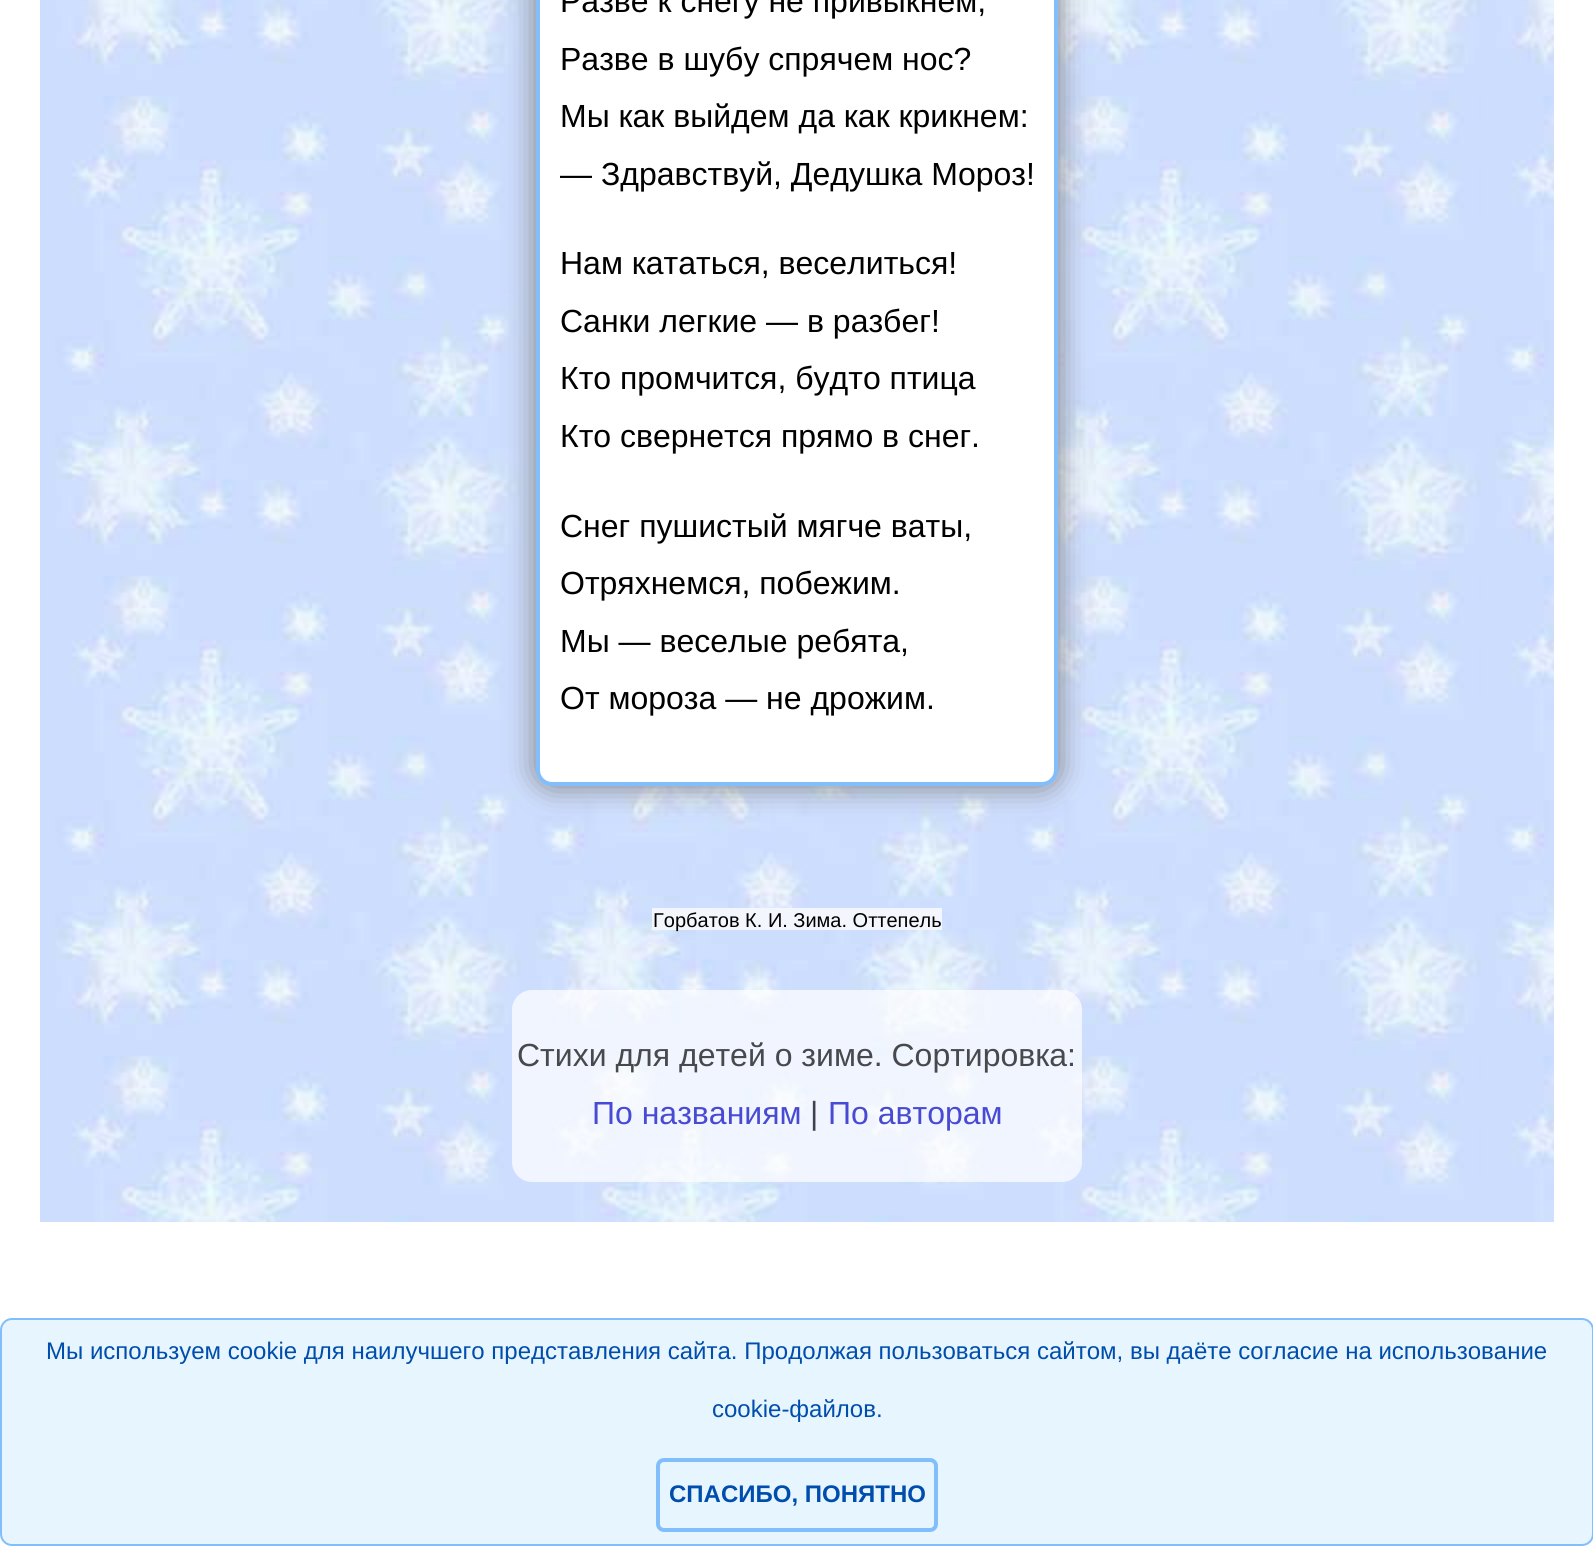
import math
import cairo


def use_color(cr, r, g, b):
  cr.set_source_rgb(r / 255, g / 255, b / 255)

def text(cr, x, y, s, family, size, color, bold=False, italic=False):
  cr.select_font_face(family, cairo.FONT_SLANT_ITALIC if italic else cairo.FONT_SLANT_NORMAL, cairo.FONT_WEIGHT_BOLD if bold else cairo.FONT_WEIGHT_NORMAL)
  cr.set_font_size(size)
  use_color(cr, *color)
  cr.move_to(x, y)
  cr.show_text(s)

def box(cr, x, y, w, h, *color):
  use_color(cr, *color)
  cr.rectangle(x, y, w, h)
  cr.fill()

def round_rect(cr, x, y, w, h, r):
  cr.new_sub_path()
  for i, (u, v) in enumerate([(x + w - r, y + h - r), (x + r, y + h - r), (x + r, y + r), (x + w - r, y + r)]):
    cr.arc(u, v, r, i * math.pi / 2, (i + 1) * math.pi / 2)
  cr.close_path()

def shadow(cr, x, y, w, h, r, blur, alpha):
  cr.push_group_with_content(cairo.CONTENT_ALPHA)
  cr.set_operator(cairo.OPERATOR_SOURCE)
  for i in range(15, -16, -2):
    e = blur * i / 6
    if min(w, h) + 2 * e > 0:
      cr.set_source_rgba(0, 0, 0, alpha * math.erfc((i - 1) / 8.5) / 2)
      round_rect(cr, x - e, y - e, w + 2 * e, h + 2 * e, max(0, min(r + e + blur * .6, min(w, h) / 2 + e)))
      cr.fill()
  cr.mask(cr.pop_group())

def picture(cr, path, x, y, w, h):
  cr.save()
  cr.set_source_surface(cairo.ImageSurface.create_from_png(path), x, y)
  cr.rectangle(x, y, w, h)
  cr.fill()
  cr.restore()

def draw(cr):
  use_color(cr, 255, 255, 255)
  cr.paint()
  picture(cr, "img_01.png", 40, 0, 1514, 1222)
  use_color(cr, 128, 128, 128)
  shadow(cr, 536, -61, 522, 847, 16, 15, 1)
  use_color(cr, 255, 255, 255)
  round_rect(cr, 538, -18, 518, 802, 14)
  cr.fill_preserve()
  use_color(cr, 130, 190, 251)
  cr.set_line_width(4)
  cr.stroke()
  box(cr, 652, 908, 290, 22, 244, 246, 253)
  cr.set_source_rgba(1, 1, 1, 0.7)
  round_rect(cr, 512, 990, 570, 192, 20)
  cr.fill()
  use_color(cr, 231, 246, 254)
  round_rect(cr, 1, 1319, 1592, 226, 11)
  cr.fill_preserve()
  use_color(cr, 130, 190, 251)
  cr.set_line_width(2)
  cr.stroke()
  round_rect(cr, 658, 1460, 278, 70, 6)
  cr.set_line_width(4)
  cr.stroke()
  text(cr, 560, 12, "Разве к снегу не привыкнем,", "Liberation Sans", 32, (0, 0, 0))
  text(cr, 560, 70, "Разве в шубу спрячем нос?", "Liberation Sans", 32, (0, 0, 0))
  text(cr, 560, 127, "Мы как выйдем да как крикнем:", "Liberation Sans", 32, (0, 0, 0))
  text(cr, 560, 185, "— Здравствуй, Дедушка Мороз!", "Liberation Sans", 32, (0, 0, 0))
  text(cr, 560, 274, "Нам кататься, веселиться!", "Liberation Sans", 32, (0, 0, 0))
  text(cr, 560, 332, "Санки легкие — в разбег!", "Liberation Sans", 32, (0, 0, 0))
  text(cr, 560, 389, "Кто промчится, будто птица", "Liberation Sans", 32, (0, 0, 0))
  text(cr, 560, 447, "Кто свернется прямо в снег.", "Liberation Sans", 32, (0, 0, 0))
  text(cr, 560, 537, "Снег пушистый мягче ваты,", "Liberation Sans", 32, (0, 0, 0))
  text(cr, 560, 594, "Отряхнемся, побежим.", "Liberation Sans", 32, (0, 0, 0))
  text(cr, 560, 652, "Мы — веселые ребята,", "Liberation Sans", 32, (0, 0, 0))
  text(cr, 560, 709, "От мороза — не дрожим.", "Liberation Sans", 32, (0, 0, 0))
  text(cr, 653, 927, "Горбатов К. И. Зима. Оттепель", "Liberation Sans", 20, (0, 0, 0))
  text(cr, 517, 1066, "Стихи для детей о зиме. Сортировка:", "Liberation Sans", 32, (72, 73, 76))
  text(cr, 592, 1124, "По названиям", "Liberation Sans", 32, (72, 74, 211))
  text(cr, 810, 1124, "|", "Liberation Sans", 32, (62, 66, 76))
  text(cr, 828, 1124, "По авторам", "Liberation Sans", 32, (72, 74, 211))
  text(cr, 46, 1359, "Мы используем cookie для наилучшего представления сайта. Продолжая пользоваться сайтом, вы даёте согласие на использование", "Liberation Sans", 24, (0, 77, 173))
  text(cr, 712, 1417, "cookie-файлов.", "Liberation Sans", 24, (0, 77, 173))
  text(cr, 669, 1502, "СПАСИБО, ПОНЯТНО", "Liberation Sans", 24, (0, 77, 173), bold=True)


surface = cairo.ImageSurface(cairo.FORMAT_RGB24, 1593, 1546)
cr = cairo.Context(surface)
options = cairo.FontOptions()
options.set_hint_metrics(cairo.HINT_METRICS_OFF)
options.set_hint_style(cairo.HINT_STYLE_NONE)
cr.set_font_options(options)
cr.set_miter_limit(4)
draw(cr)
surface.write_to_png("out.png")
